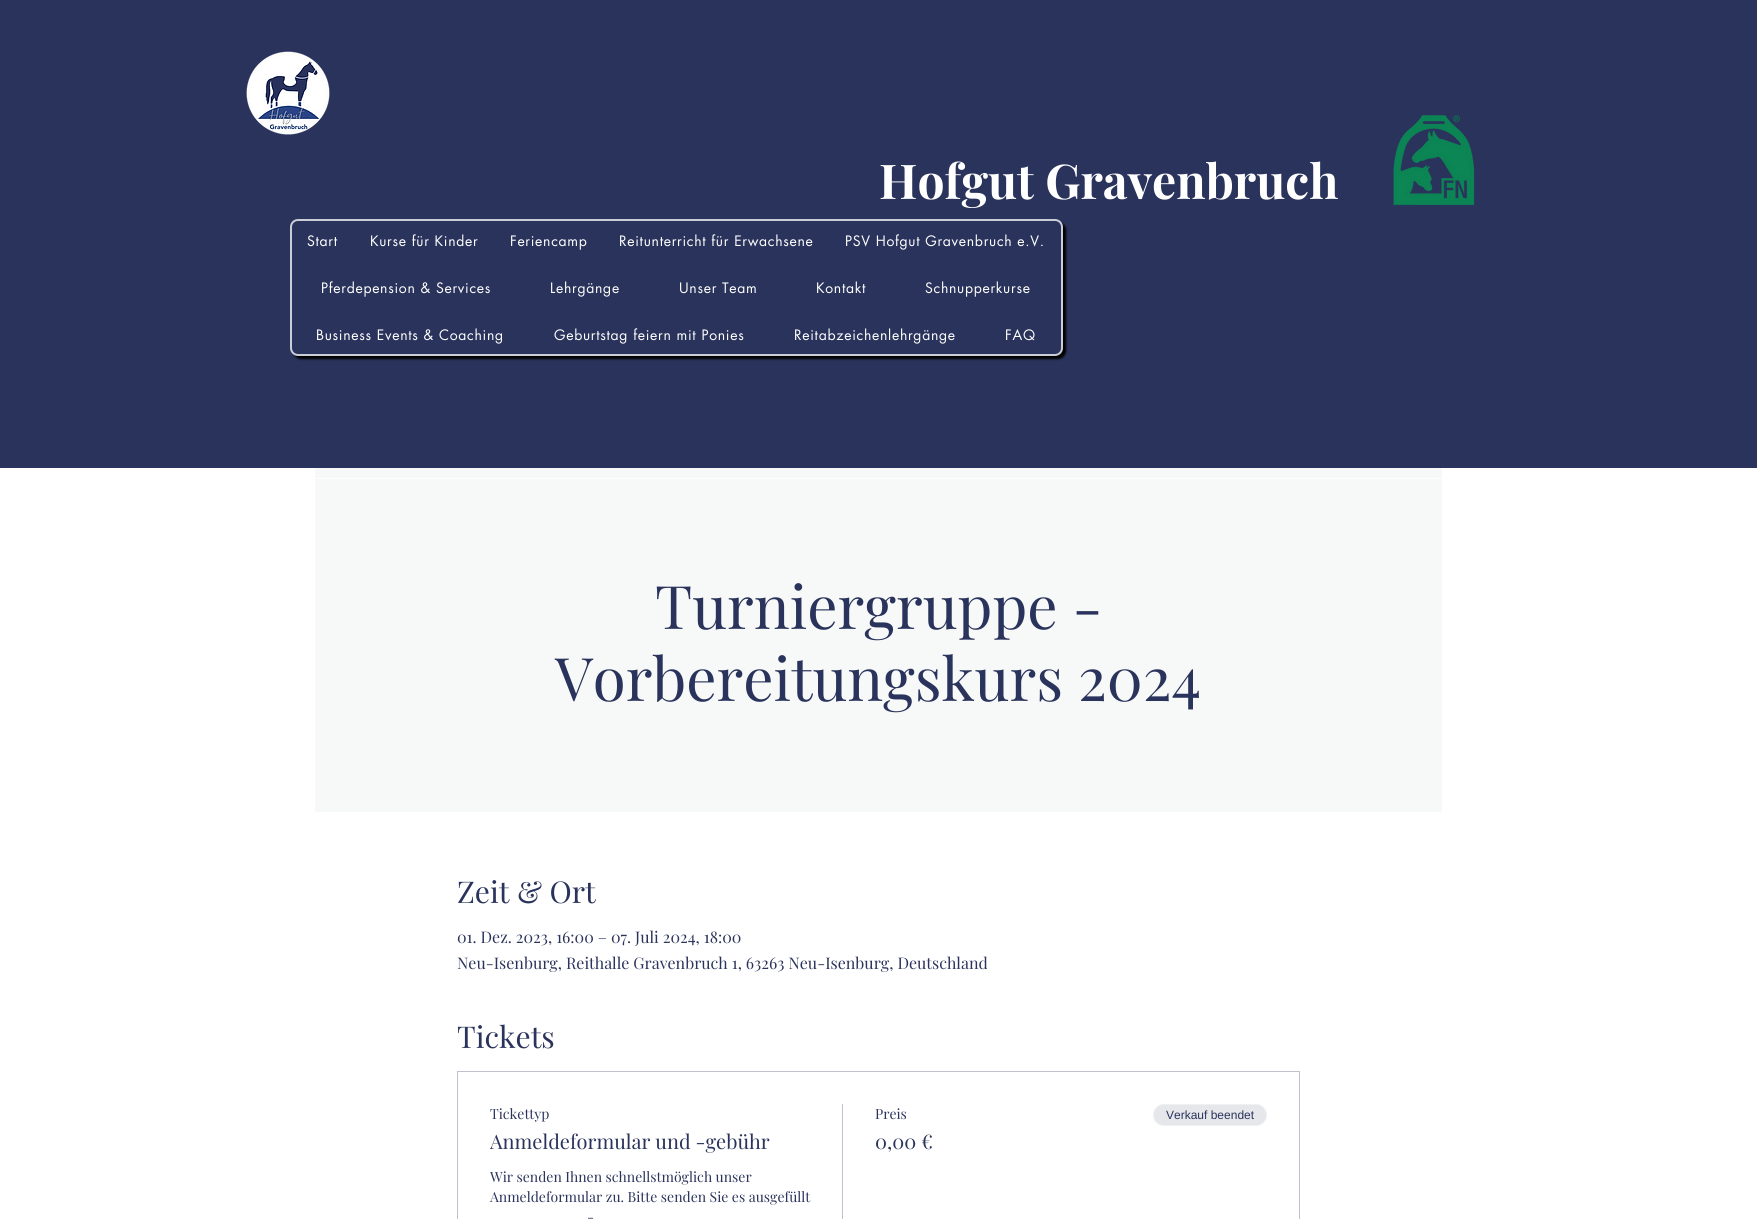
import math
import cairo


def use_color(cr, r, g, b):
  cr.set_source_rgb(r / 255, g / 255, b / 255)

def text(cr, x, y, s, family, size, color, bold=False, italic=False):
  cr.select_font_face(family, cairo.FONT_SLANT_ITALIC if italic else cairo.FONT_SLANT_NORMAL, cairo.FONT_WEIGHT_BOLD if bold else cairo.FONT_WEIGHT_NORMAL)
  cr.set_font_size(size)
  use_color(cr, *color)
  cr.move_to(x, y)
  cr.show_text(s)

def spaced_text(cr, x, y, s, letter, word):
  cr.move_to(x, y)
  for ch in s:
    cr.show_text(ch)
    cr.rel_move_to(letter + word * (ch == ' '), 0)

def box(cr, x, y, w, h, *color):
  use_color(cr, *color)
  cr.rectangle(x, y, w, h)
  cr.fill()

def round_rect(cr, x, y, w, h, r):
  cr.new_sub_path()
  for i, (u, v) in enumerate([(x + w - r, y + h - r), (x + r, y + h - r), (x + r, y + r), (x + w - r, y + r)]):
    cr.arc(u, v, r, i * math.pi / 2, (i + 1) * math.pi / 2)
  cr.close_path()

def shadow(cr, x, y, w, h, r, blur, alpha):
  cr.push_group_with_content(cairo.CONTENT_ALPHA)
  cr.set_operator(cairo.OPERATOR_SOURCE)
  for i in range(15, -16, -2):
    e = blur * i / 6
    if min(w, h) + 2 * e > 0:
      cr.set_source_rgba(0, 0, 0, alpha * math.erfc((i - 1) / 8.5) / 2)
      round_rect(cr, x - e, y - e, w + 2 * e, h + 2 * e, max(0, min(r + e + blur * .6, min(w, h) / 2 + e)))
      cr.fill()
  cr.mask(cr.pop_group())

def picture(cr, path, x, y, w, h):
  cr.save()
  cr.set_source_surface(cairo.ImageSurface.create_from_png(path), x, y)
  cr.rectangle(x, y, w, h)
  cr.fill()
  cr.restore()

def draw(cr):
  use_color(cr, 255, 255, 255)
  cr.paint()
  box(cr, 0, 0, 1757, 468, 42, 51, 91)
  picture(cr, "img_01.png", 246, 51, 84, 84)
  picture(cr, "img_02.png", 1393, 115, 82, 91)
  use_color(cr, 0, 0, 0)
  shadow(cr, 293, 222, 773, 137, 8, 1, 1)
  use_color(cr, 42, 51, 91)
  round_rect(cr, 291, 220, 771, 135, 7)
  cr.fill_preserve()
  use_color(cr, 202, 204, 214)
  cr.stroke()
  box(cr, 315, 468, 1127, 344, 247, 249, 249)
  box(cr, 315, 478, 1127, 1, 254, 254, 254)
  cr.rectangle(457.5, 1071.5, 842, 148)
  use_color(cr, 191, 194, 206)
  cr.set_line_width(1)
  cr.stroke()
  box(cr, 842, 1104, 1, 115, 191, 194, 206)
  use_color(cr, 229, 231, 235)
  round_rect(cr, 1153, 1104, 114, 22, 11)
  cr.fill()
  round_rect(cr, 1153.5, 1104.5, 113, 21, 10.5)
  cr.set_source_rgba(1, 1, 1, 0.4)
  cr.stroke()
  text(cr, 879, 199, "Hofgut Gravenbruch", "Playfair Display", 48, (255, 255, 255), bold=True)
  cr.select_font_face("futura")
  cr.set_font_size(14)
  spaced_text(cr, 307, 246, "Start", 0.7, 0)
  spaced_text(cr, 370, 246, "Kurse für Kinder", 0.7, 0)
  spaced_text(cr, 510, 246, "Feriencamp", 0.7, 0)
  spaced_text(cr, 619, 246, "Reitunterricht für Erwachsene", 0.7, 0)
  spaced_text(cr, 845, 246, "PSV Hofgut Gravenbruch e.V.", 0.7, 0)
  spaced_text(cr, 321, 293, "Pferdepension & Services", 0.7, 0)
  spaced_text(cr, 550, 293, "Lehrgänge", 0.7, 0)
  spaced_text(cr, 679, 293, "Unser Team", 0.7, 0)
  spaced_text(cr, 816, 293, "Kontakt", 0.7, 0)
  spaced_text(cr, 925, 293, "Schnupperkurse", 0.7, 0)
  spaced_text(cr, 316, 340, "Business Events & Coaching", 0.7, 0)
  spaced_text(cr, 554, 340, "Geburtstag feiern mit Ponies", 0.7, 0)
  spaced_text(cr, 794, 340, "Reitabzeichenlehrgänge", 0.7, 0)
  spaced_text(cr, 1005, 340, "FAQ", 0.7, 0)
  text(cr, 655, 629, "Turniergruppe -", "Playfair Display", 60, (42, 51, 91))
  text(cr, 555, 701, "Vorbereitungskurs 2024", "Playfair Display", 60, (42, 51, 91))
  text(cr, 457, 903, "Zeit & Ort", "Playfair Display", 30, (42, 51, 91))
  text(cr, 457, 943, "01. Dez. 2023, 16:00 – 07. Juli 2024, 18:00", "Playfair Display", 16, (42, 51, 91))
  text(cr, 457, 969, "Neu-Isenburg, Reithalle Gravenbruch 1, 63263 Neu-Isenburg, Deutschland", "Playfair Display", 16, (42, 51, 91))
  text(cr, 457, 1048, "Tickets", "Playfair Display", 30, (42, 51, 91))
  text(cr, 490, 1119, "Tickettyp", "Playfair Display", 14, (42, 51, 91))
  text(cr, 490, 1149, "Anmeldeformular und -gebühr", "Playfair Display", 20, (42, 51, 91))
  text(cr, 490, 1182, "Wir senden Ihnen schnellstmöglich unser", "Playfair Display", 14, (42, 51, 91))
  text(cr, 490, 1202, "Anmeldeformular zu. Bitte senden Sie es ausgefüllt", "Playfair Display", 14, (42, 51, 91))
  text(cr, 587, 1222, "-", "Playfair Display", 14, (42, 51, 91))
  text(cr, 875, 1119, "Preis", "Playfair Display", 14, (42, 51, 91))
  text(cr, 875, 1149, "0,00 €", "Playfair Display", 20, (42, 51, 91))
  text(cr, 1166, 1119, "Verkauf beendet", "Liberation Sans", 12, (42, 51, 91))


surface = cairo.ImageSurface(cairo.FORMAT_RGB24, 1757, 1219)
cr = cairo.Context(surface)
options = cairo.FontOptions()
options.set_hint_metrics(cairo.HINT_METRICS_OFF)
options.set_hint_style(cairo.HINT_STYLE_NONE)
cr.set_font_options(options)
cr.set_miter_limit(4)
draw(cr)
surface.write_to_png("out.png")
